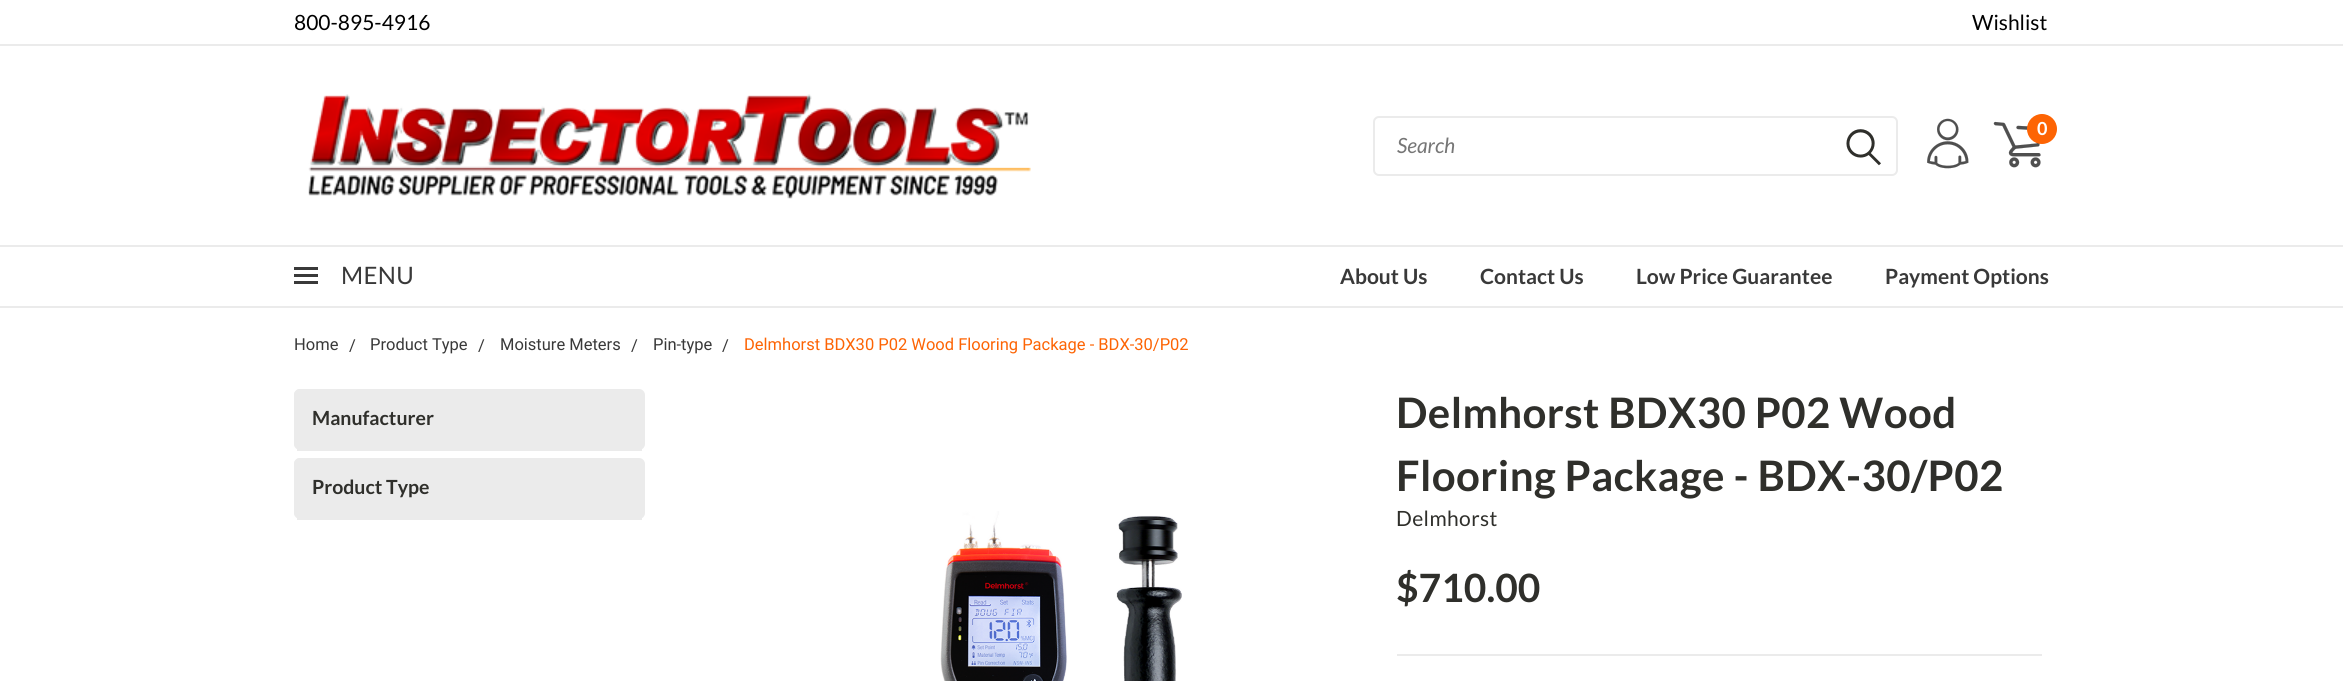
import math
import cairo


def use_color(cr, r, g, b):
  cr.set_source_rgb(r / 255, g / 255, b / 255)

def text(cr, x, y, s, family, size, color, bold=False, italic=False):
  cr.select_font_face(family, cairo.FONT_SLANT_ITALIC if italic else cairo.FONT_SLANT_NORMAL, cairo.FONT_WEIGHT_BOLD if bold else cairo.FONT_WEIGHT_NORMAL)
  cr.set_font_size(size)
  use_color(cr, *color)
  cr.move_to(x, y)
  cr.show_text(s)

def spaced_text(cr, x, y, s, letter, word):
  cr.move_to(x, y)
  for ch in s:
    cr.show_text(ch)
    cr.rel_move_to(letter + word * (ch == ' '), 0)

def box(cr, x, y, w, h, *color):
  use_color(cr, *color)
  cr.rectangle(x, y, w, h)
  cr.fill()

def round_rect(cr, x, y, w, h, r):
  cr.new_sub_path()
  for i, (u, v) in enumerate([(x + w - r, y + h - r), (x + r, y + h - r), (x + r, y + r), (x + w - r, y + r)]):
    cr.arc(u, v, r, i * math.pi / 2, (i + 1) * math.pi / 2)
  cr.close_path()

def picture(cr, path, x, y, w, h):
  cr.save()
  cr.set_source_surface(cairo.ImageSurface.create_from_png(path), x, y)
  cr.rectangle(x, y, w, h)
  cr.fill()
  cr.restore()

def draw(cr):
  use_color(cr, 255, 255, 255)
  cr.paint()
  box(cr, 0, 44, 2343, 2, 235, 235, 235)
  picture(cr, "img_01.png", 308, 94, 723, 105)
  picture(cr, "img_02.png", 1927, 118, 42, 51)
  picture(cr, "img_03.png", 1993, 121, 48, 47)
  use_color(cr, 253, 100, 4)
  cr.arc(2042, 129, 15, 0, 2 * math.pi)
  cr.fill()
  round_rect(cr, 1374, 117, 523, 58, 5)
  use_color(cr, 235, 235, 235)
  cr.stroke()
  picture(cr, "img_04.png", 1846, 129, 35, 37)
  box(cr, 0, 245, 2343, 2, 235, 235, 235)
  box(cr, 0, 306, 2343, 2, 235, 235, 235)
  box(cr, 294, 267, 24, 3, 57, 57, 57)
  box(cr, 294, 274, 24, 3, 57, 57, 57)
  box(cr, 294, 281, 24, 3, 57, 57, 57)
  use_color(cr, 235, 235, 235)
  round_rect(cr, 294, 389, 351, 61, 6)
  cr.fill()
  box(cr, 297, 449, 345, 2, 235, 235, 235)
  round_rect(cr, 294, 389, 299, 60, 6)
  cr.fill()
  round_rect(cr, 294, 458, 351, 61, 6)
  cr.fill()
  box(cr, 297, 518, 345, 2, 235, 235, 235)
  round_rect(cr, 294, 458, 299, 60, 6)
  cr.fill()
  picture(cr, "img_05.png", 940, 511, 242, 170)
  box(cr, 1397, 654, 645, 2, 235, 235, 235)
  text(cr, 294, 30, "800-895-4916", "Lato", 21, (0, 0, 0))
  text(cr, 1972, 30, "Wishlist", "Lato", 21, (0, 0, 0))
  text(cr, 2037, 135, "0", "Lato", 18, (255, 255, 255), bold=True)
  text(cr, 1397, 153, "Search", "Lato", 21, (118, 118, 118), italic=True)
  cr.select_font_face("Lato")
  cr.set_font_size(24)
  use_color(cr, 57, 57, 57)
  spaced_text(cr, 341, 284, "MENU", 0.4, 0)
  text(cr, 1340, 284, "About Us", "Lato", 21, (57, 57, 57), bold=True)
  text(cr, 1480, 284, "Contact Us", "Lato", 21, (57, 57, 57), bold=True)
  text(cr, 1636, 284, "Low Price Guarantee", "Lato", 21, (57, 57, 57), bold=True)
  text(cr, 1885, 284, "Payment Options", "Lato", 21, (57, 57, 57), bold=True)
  text(cr, 294, 350, "Home", "Roboto", 16.5, (57, 57, 57))
  text(cr, 349, 351, "/", "Roboto", 16.5, (57, 57, 57))
  text(cr, 370, 350, "Product Type", "Roboto", 16.5, (57, 57, 57))
  text(cr, 478, 351, "/", "Roboto", 16.5, (57, 57, 57))
  text(cr, 500, 350, "Moisture Meters", "Roboto", 16.5, (57, 57, 57))
  text(cr, 631, 351, "/", "Roboto", 16.5, (57, 57, 57))
  text(cr, 653, 350, "Pin-type", "Roboto", 16.5, (57, 57, 57))
  text(cr, 722, 351, "/", "Roboto", 16.5, (57, 57, 57))
  text(cr, 744, 350, "Delmhorst BDX30 P02 Wood Flooring Package - BDX-30/P02", "Roboto", 16.5, (253, 100, 4))
  text(cr, 312, 425, "Manufacturer", "Lato", 19.5, (47, 47, 43), bold=True)
  text(cr, 312, 494, "Product Type", "Lato", 19.5, (47, 47, 43), bold=True)
  cr.set_font_size(42)
  spaced_text(cr, 1396, 428, "Delmhorst BDX30 P02 Wood", 0.4, 0)
  spaced_text(cr, 1396, 491, "Flooring Package - BDX-30/P02", 0.4, 0)
  cr.select_font_face("Lato")
  cr.set_font_size(21)
  spaced_text(cr, 1396, 526, "Delmhorst", 0.4, 0)
  text(cr, 1396, 602, "$710.00", "Lato", 39, (47, 47, 43), bold=True)


surface = cairo.ImageSurface(cairo.FORMAT_RGB24, 2343, 681)
cr = cairo.Context(surface)
options = cairo.FontOptions()
options.set_hint_metrics(cairo.HINT_METRICS_OFF)
options.set_hint_style(cairo.HINT_STYLE_NONE)
cr.set_font_options(options)
cr.set_miter_limit(4)
draw(cr)
surface.write_to_png("out.png")
